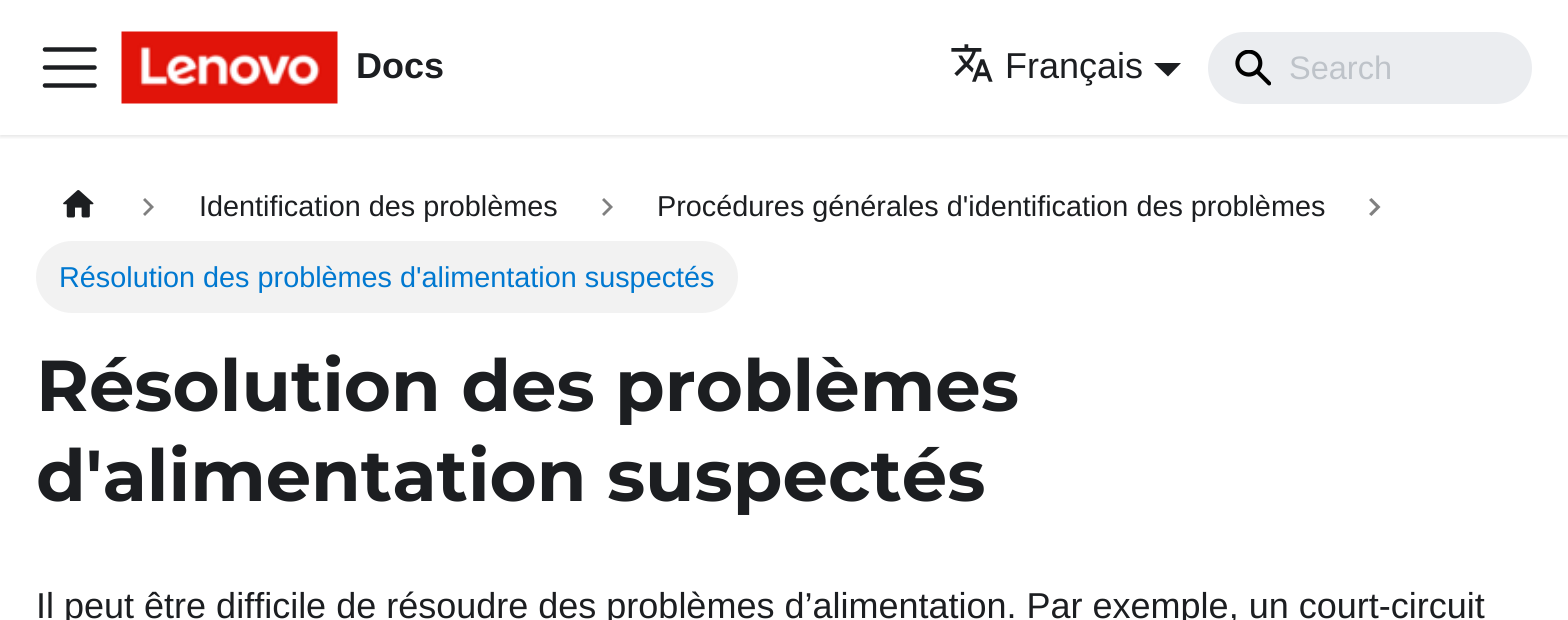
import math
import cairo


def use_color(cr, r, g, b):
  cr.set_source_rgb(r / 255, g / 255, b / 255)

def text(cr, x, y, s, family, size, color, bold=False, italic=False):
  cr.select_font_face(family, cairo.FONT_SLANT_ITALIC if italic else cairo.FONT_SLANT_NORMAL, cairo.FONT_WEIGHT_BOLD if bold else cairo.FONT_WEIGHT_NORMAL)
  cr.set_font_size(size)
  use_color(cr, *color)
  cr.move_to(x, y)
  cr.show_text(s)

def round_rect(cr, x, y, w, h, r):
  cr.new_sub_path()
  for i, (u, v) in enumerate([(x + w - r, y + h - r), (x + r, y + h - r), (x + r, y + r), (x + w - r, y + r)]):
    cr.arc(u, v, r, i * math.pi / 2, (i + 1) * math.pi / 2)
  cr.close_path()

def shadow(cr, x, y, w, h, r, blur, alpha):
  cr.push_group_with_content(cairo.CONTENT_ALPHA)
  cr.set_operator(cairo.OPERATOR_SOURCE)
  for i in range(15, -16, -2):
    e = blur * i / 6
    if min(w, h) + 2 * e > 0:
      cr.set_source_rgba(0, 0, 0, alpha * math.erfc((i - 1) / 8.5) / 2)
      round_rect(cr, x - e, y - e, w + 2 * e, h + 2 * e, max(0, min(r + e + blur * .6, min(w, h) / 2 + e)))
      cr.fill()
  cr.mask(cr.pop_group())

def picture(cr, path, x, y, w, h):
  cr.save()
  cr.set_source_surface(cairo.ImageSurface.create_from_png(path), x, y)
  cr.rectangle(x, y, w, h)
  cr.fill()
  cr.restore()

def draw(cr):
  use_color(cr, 255, 255, 255)
  cr.paint()
  cr.save()
  cr.rectangle(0, 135, 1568, 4)
  cr.clip()
  use_color(cr, 0, 0, 0)
  shadow(cr, 0, 2, 1568, 135, 0, 2, 0.1)
  cr.restore()
  cr.new_path()
  cr.move_to(45, 49.5)
  cr.line_to(94.5, 49.5)
  cr.move_to(45, 67.5)
  cr.line_to(94.5, 67.5)
  cr.move_to(45, 85.5)
  cr.line_to(94.5, 85.5)
  use_color(cr, 28, 30, 33)
  cr.set_line_width(4.5)
  cr.set_line_cap(cairo.LINE_CAP_ROUND)
  cr.stroke()
  picture(cr, "img_01.png", 121, 31, 217, 73)
  picture(cr, "img_02.png", 951, 44, 42, 38)
  cr.new_path()
  cr.move_to(1154, 63)
  cr.line_to(1181, 63)
  cr.line_to(1168, 76.5)
  cr.close_path()
  cr.fill()
  use_color(cr, 235, 237, 240)
  round_rect(cr, 1208, 32, 324, 72, 36)
  cr.fill()
  picture(cr, "img_03.png", 1235, 50, 36, 36)
  picture(cr, "img_04.png", 63, 190, 31, 28)
  use_color(cr, 128, 128, 128)
  cr.new_path()
  cr.move_to(145, 198)
  cr.line_to(143, 200)
  cr.line_to(150, 207)
  cr.line_to(143, 214)
  cr.line_to(145, 216)
  cr.line_to(154, 207)
  cr.close_path()
  cr.fill()
  cr.new_path()
  cr.move_to(604, 198)
  cr.line_to(602, 200)
  cr.line_to(609, 207)
  cr.line_to(602, 214)
  cr.line_to(604, 216)
  cr.line_to(613, 207)
  cr.close_path()
  cr.fill()
  cr.new_path()
  cr.move_to(1371.5, 198)
  cr.line_to(1369, 200)
  cr.line_to(1376, 207)
  cr.line_to(1369, 214)
  cr.line_to(1371.5, 216)
  cr.line_to(1380.5, 207)
  cr.close_path()
  cr.fill()
  use_color(cr, 242, 242, 242)
  round_rect(cr, 36, 241, 702, 72, 36)
  cr.fill()
  text(cr, 356, 78, "Docs", "Liberation Sans", 36, (28, 30, 33), bold=True)
  text(cr, 1005, 78, "Français", "Liberation Sans", 36, (28, 30, 33))
  text(cr, 1289, 79, "Search", "Liberation Sans", 32.5, (190, 195, 201))
  text(cr, 199, 216, "Identification des problèmes", "Liberation Sans", 28.8, (28, 30, 33))
  text(cr, 657, 216, "Procédures générales d'identification des problèmes", "Liberation Sans", 28.8, (28, 30, 33))
  text(cr, 59, 287, "Résolution des problèmes d'alimentation suspectés", "Liberation Sans", 28.8, (0, 120, 208))
  text(cr, 36, 411, "Résolution des problèmes", "Montserrat", 72, (28, 30, 33), bold=True)
  text(cr, 36, 501, "d'alimentation suspectés", "Montserrat", 72, (28, 30, 33), bold=True)
  text(cr, 36, 618, "Il peut être difficile de résoudre des problèmes d’alimentation. Par exemple, un court-circuit", "Liberation Sans", 36, (28, 30, 33))


surface = cairo.ImageSurface(cairo.FORMAT_RGB24, 1568, 620)
cr = cairo.Context(surface)
options = cairo.FontOptions()
options.set_hint_metrics(cairo.HINT_METRICS_OFF)
options.set_hint_style(cairo.HINT_STYLE_NONE)
cr.set_font_options(options)
cr.set_miter_limit(4)
draw(cr)
surface.write_to_png("out.png")
